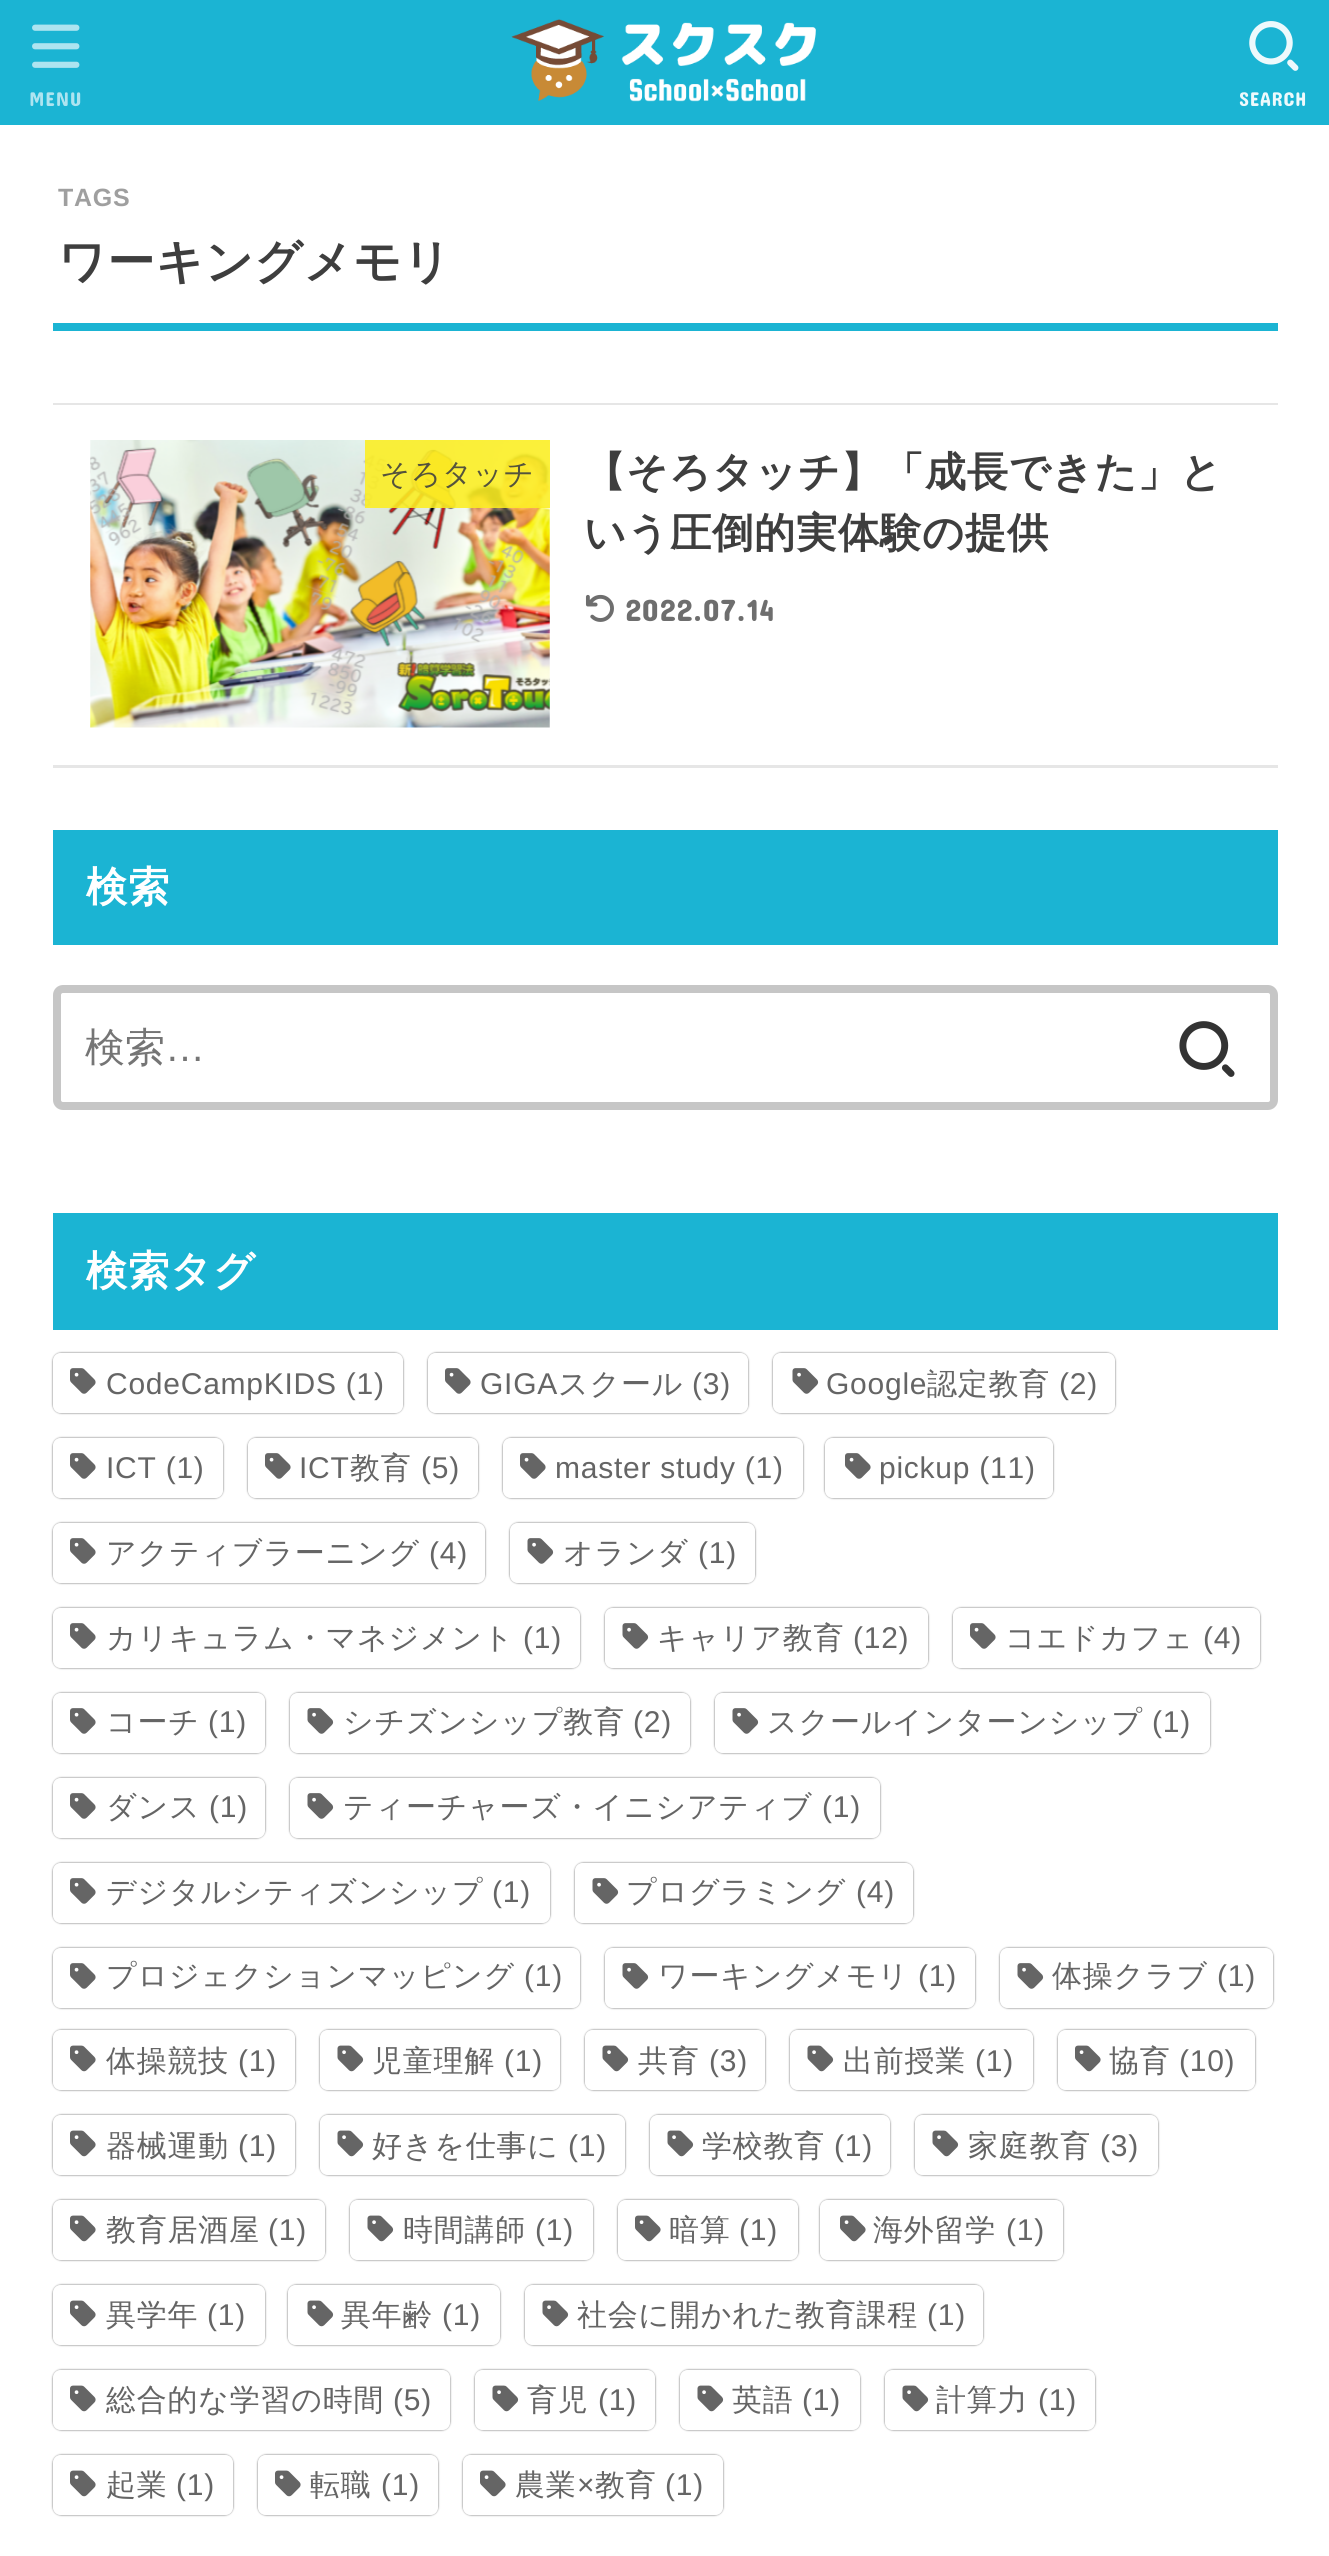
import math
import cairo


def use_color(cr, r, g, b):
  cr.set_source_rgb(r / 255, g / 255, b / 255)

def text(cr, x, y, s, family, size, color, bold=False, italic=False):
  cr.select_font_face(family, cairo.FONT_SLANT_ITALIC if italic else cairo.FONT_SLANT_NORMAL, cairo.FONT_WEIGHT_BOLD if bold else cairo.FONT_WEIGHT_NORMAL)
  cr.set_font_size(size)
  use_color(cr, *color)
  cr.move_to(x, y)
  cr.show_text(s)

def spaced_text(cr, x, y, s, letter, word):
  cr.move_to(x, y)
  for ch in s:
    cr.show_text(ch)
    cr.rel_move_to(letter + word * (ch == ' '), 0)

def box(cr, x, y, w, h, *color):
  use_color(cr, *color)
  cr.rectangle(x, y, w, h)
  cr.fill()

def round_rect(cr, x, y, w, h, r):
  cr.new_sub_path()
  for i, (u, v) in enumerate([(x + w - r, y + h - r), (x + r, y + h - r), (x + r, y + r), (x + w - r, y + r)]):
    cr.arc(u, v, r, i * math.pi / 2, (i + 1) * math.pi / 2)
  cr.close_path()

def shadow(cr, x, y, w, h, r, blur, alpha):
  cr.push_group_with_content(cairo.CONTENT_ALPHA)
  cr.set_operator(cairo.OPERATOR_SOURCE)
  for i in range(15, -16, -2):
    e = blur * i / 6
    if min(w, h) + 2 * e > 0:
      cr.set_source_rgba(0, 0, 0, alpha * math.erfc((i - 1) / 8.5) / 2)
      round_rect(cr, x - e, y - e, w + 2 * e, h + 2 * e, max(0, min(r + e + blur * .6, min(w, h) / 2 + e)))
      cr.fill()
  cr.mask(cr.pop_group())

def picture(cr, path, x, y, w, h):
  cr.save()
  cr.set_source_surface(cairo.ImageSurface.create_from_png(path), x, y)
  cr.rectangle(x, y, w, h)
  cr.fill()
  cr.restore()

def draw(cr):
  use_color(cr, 255, 255, 255)
  cr.paint()
  box(cr, 0, 0, 1329, 125, 27, 180, 211)
  picture(cr, "img_01.png", 32, 24, 48, 44)
  picture(cr, "img_02.png", 511, 19, 305, 83)
  picture(cr, "img_03.png", 1249, 21, 50, 50)
  box(cr, 53, 323, 1225, 8, 27, 180, 211)
  box(cr, 53, 403, 1225, 2, 230, 230, 230)
  box(cr, 53, 765, 1225, 3, 230, 230, 230)
  picture(cr, "img_04.png", 90, 440, 460, 288)
  cr.set_source_rgba(0.988, 0.933, 0.129, 0.88)
  cr.rectangle(365, 440, 185, 68)
  cr.fill()
  picture(cr, "img_05.png", 585, 594, 29, 28)
  box(cr, 53, 830, 1225, 115, 27, 180, 211)
  round_rect(cr, 57, 989, 1217, 117, 6)
  use_color(cr, 198, 198, 198)
  cr.set_line_width(8)
  cr.stroke()
  picture(cr, "img_06.png", 1179, 1021, 56, 56)
  box(cr, 53, 1213, 1225, 117, 27, 180, 211)
  cr.save()
  cr.set_fill_rule(cairo.FILL_RULE_EVEN_ODD)
  cr.new_path()
  cr.move_to(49, 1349)
  cr.line_to(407, 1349)
  cr.line_to(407, 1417)
  cr.line_to(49, 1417)
  cr.close_path()
  cr.move_to(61, 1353)
  cr.line_to(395, 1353)
  cr.curve_to(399.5, 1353, 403, 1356.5, 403, 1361)
  cr.line_to(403, 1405)
  cr.curve_to(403, 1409.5, 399.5, 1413, 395, 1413)
  cr.line_to(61, 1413)
  cr.curve_to(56.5, 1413, 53, 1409.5, 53, 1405)
  cr.line_to(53, 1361)
  cr.curve_to(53, 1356.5, 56.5, 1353, 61, 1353)
  cr.close_path()
  cr.clip()
  use_color(cr, 101, 101, 101)
  shadow(cr, 53, 1353, 350, 60, 8, 1, 1)
  cr.restore()
  picture(cr, "img_07.png", 70, 1368, 26, 26)
  cr.save()
  cr.set_fill_rule(cairo.FILL_RULE_EVEN_ODD)
  cr.new_path()
  cr.move_to(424, 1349)
  cr.line_to(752, 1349)
  cr.line_to(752, 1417)
  cr.line_to(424, 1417)
  cr.close_path()
  cr.move_to(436, 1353)
  cr.line_to(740, 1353)
  cr.curve_to(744.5, 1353, 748, 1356.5, 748, 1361)
  cr.line_to(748, 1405)
  cr.curve_to(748, 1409.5, 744.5, 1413, 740, 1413)
  cr.line_to(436, 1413)
  cr.curve_to(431.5, 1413, 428, 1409.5, 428, 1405)
  cr.line_to(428, 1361)
  cr.curve_to(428, 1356.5, 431.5, 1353, 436, 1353)
  cr.close_path()
  cr.clip()
  use_color(cr, 101, 101, 101)
  shadow(cr, 428, 1353, 320, 60, 8, 1, 1)
  cr.restore()
  picture(cr, "img_07.png", 445, 1368, 26, 26)
  cr.save()
  cr.set_fill_rule(cairo.FILL_RULE_EVEN_ODD)
  cr.new_path()
  cr.move_to(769, 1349)
  cr.line_to(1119, 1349)
  cr.line_to(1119, 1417)
  cr.line_to(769, 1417)
  cr.close_path()
  cr.move_to(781, 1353)
  cr.line_to(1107, 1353)
  cr.curve_to(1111.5, 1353, 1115, 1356.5, 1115, 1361)
  cr.line_to(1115, 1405)
  cr.curve_to(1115, 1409.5, 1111.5, 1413, 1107, 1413)
  cr.line_to(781, 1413)
  cr.curve_to(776.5, 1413, 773, 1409.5, 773, 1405)
  cr.line_to(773, 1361)
  cr.curve_to(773, 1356.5, 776.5, 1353, 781, 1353)
  cr.close_path()
  cr.clip()
  use_color(cr, 101, 101, 101)
  shadow(cr, 773, 1353, 342, 60, 8, 1, 1)
  cr.restore()
  picture(cr, "img_08.png", 792, 1368, 27, 26)
  cr.save()
  cr.set_fill_rule(cairo.FILL_RULE_EVEN_ODD)
  cr.new_path()
  cr.move_to(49, 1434)
  cr.line_to(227, 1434)
  cr.line_to(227, 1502)
  cr.line_to(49, 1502)
  cr.close_path()
  cr.move_to(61, 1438)
  cr.line_to(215, 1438)
  cr.curve_to(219.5, 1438, 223, 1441.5, 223, 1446)
  cr.line_to(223, 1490)
  cr.curve_to(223, 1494.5, 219.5, 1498, 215, 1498)
  cr.line_to(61, 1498)
  cr.curve_to(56.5, 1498, 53, 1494.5, 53, 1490)
  cr.line_to(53, 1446)
  cr.curve_to(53, 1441.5, 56.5, 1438, 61, 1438)
  cr.close_path()
  cr.clip()
  use_color(cr, 101, 101, 101)
  shadow(cr, 53, 1438, 170, 60, 8, 1, 1)
  cr.restore()
  picture(cr, "img_07.png", 70, 1453, 26, 26)
  cr.save()
  cr.set_fill_rule(cairo.FILL_RULE_EVEN_ODD)
  cr.new_path()
  cr.move_to(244, 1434)
  cr.line_to(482, 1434)
  cr.line_to(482, 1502)
  cr.line_to(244, 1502)
  cr.close_path()
  cr.move_to(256, 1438)
  cr.line_to(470, 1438)
  cr.curve_to(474.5, 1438, 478, 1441.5, 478, 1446)
  cr.line_to(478, 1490)
  cr.curve_to(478, 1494.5, 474.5, 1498, 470, 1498)
  cr.line_to(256, 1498)
  cr.curve_to(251.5, 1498, 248, 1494.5, 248, 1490)
  cr.line_to(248, 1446)
  cr.curve_to(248, 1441.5, 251.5, 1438, 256, 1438)
  cr.close_path()
  cr.clip()
  use_color(cr, 101, 101, 101)
  shadow(cr, 248, 1438, 230, 60, 8, 1, 1)
  cr.restore()
  picture(cr, "img_07.png", 265, 1453, 26, 26)
  cr.save()
  cr.set_fill_rule(cairo.FILL_RULE_EVEN_ODD)
  cr.new_path()
  cr.move_to(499, 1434)
  cr.line_to(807, 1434)
  cr.line_to(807, 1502)
  cr.line_to(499, 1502)
  cr.close_path()
  cr.move_to(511, 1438)
  cr.line_to(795, 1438)
  cr.curve_to(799.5, 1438, 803, 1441.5, 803, 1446)
  cr.line_to(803, 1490)
  cr.curve_to(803, 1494.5, 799.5, 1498, 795, 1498)
  cr.line_to(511, 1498)
  cr.curve_to(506.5, 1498, 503, 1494.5, 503, 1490)
  cr.line_to(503, 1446)
  cr.curve_to(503, 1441.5, 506.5, 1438, 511, 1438)
  cr.close_path()
  cr.clip()
  use_color(cr, 101, 101, 101)
  shadow(cr, 503, 1438, 300, 60, 8, 1, 1)
  cr.restore()
  picture(cr, "img_07.png", 520, 1453, 26, 26)
  cr.save()
  cr.set_fill_rule(cairo.FILL_RULE_EVEN_ODD)
  cr.new_path()
  cr.move_to(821, 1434)
  cr.line_to(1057, 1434)
  cr.line_to(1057, 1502)
  cr.line_to(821, 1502)
  cr.close_path()
  cr.move_to(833, 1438)
  cr.line_to(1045, 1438)
  cr.curve_to(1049.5, 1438, 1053, 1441.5, 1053, 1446)
  cr.line_to(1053, 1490)
  cr.curve_to(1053, 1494.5, 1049.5, 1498, 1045, 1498)
  cr.line_to(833, 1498)
  cr.curve_to(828.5, 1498, 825, 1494.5, 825, 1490)
  cr.line_to(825, 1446)
  cr.curve_to(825, 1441.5, 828.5, 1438, 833, 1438)
  cr.close_path()
  cr.clip()
  use_color(cr, 101, 101, 101)
  shadow(cr, 825, 1438, 228, 60, 8, 1, 1)
  cr.restore()
  picture(cr, "img_07.png", 845, 1453, 26, 26)
  cr.save()
  cr.set_fill_rule(cairo.FILL_RULE_EVEN_ODD)
  cr.new_path()
  cr.move_to(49, 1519)
  cr.line_to(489, 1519)
  cr.line_to(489, 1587)
  cr.line_to(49, 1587)
  cr.close_path()
  cr.move_to(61, 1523)
  cr.line_to(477, 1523)
  cr.curve_to(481.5, 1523, 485, 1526.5, 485, 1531)
  cr.line_to(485, 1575)
  cr.curve_to(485, 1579.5, 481.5, 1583, 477, 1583)
  cr.line_to(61, 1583)
  cr.curve_to(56.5, 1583, 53, 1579.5, 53, 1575)
  cr.line_to(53, 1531)
  cr.curve_to(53, 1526.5, 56.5, 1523, 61, 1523)
  cr.close_path()
  cr.clip()
  use_color(cr, 101, 101, 101)
  shadow(cr, 53, 1523, 432, 60, 8, 1, 1)
  cr.restore()
  picture(cr, "img_07.png", 70, 1538, 26, 26)
  cr.save()
  cr.set_fill_rule(cairo.FILL_RULE_EVEN_ODD)
  cr.new_path()
  cr.move_to(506, 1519)
  cr.line_to(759, 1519)
  cr.line_to(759, 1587)
  cr.line_to(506, 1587)
  cr.close_path()
  cr.move_to(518, 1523)
  cr.line_to(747, 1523)
  cr.curve_to(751.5, 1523, 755, 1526.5, 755, 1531)
  cr.line_to(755, 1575)
  cr.curve_to(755, 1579.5, 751.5, 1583, 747, 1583)
  cr.line_to(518, 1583)
  cr.curve_to(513.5, 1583, 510, 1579.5, 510, 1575)
  cr.line_to(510, 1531)
  cr.curve_to(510, 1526.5, 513.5, 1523, 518, 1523)
  cr.close_path()
  cr.clip()
  use_color(cr, 101, 101, 101)
  shadow(cr, 510, 1523, 245, 60, 8, 1, 1)
  cr.restore()
  picture(cr, "img_08.png", 527, 1538, 27, 26)
  cr.save()
  cr.set_fill_rule(cairo.FILL_RULE_EVEN_ODD)
  cr.new_path()
  cr.move_to(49, 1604)
  cr.line_to(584, 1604)
  cr.line_to(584, 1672)
  cr.line_to(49, 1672)
  cr.close_path()
  cr.move_to(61, 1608)
  cr.line_to(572, 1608)
  cr.curve_to(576.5, 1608, 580, 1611.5, 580, 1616)
  cr.line_to(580, 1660)
  cr.curve_to(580, 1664.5, 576.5, 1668, 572, 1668)
  cr.line_to(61, 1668)
  cr.curve_to(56.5, 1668, 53, 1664.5, 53, 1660)
  cr.line_to(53, 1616)
  cr.curve_to(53, 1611.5, 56.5, 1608, 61, 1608)
  cr.close_path()
  cr.clip()
  use_color(cr, 101, 101, 101)
  shadow(cr, 53, 1608, 527, 60, 8, 1, 1)
  cr.restore()
  picture(cr, "img_07.png", 70, 1623, 26, 26)
  cr.save()
  cr.set_fill_rule(cairo.FILL_RULE_EVEN_ODD)
  cr.new_path()
  cr.move_to(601, 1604)
  cr.line_to(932, 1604)
  cr.line_to(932, 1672)
  cr.line_to(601, 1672)
  cr.close_path()
  cr.move_to(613, 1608)
  cr.line_to(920, 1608)
  cr.curve_to(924.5, 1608, 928, 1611.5, 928, 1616)
  cr.line_to(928, 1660)
  cr.curve_to(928, 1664.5, 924.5, 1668, 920, 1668)
  cr.line_to(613, 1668)
  cr.curve_to(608.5, 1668, 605, 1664.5, 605, 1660)
  cr.line_to(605, 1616)
  cr.curve_to(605, 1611.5, 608.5, 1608, 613, 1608)
  cr.close_path()
  cr.clip()
  use_color(cr, 101, 101, 101)
  shadow(cr, 605, 1608, 323, 60, 8, 1, 1)
  cr.restore()
  picture(cr, "img_08.png", 622, 1623, 27, 26)
  cr.save()
  cr.set_fill_rule(cairo.FILL_RULE_EVEN_ODD)
  cr.new_path()
  cr.move_to(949, 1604)
  cr.line_to(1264, 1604)
  cr.line_to(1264, 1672)
  cr.line_to(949, 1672)
  cr.close_path()
  cr.move_to(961, 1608)
  cr.line_to(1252, 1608)
  cr.curve_to(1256.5, 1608, 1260, 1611.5, 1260, 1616)
  cr.line_to(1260, 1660)
  cr.curve_to(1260, 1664.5, 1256.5, 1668, 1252, 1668)
  cr.line_to(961, 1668)
  cr.curve_to(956.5, 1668, 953, 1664.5, 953, 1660)
  cr.line_to(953, 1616)
  cr.curve_to(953, 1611.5, 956.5, 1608, 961, 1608)
  cr.close_path()
  cr.clip()
  use_color(cr, 101, 101, 101)
  shadow(cr, 953, 1608, 307, 60, 8, 1, 1)
  cr.restore()
  picture(cr, "img_07.png", 970, 1623, 26, 26)
  cr.save()
  cr.set_fill_rule(cairo.FILL_RULE_EVEN_ODD)
  cr.new_path()
  cr.move_to(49, 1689)
  cr.line_to(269, 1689)
  cr.line_to(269, 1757)
  cr.line_to(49, 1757)
  cr.close_path()
  cr.move_to(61, 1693)
  cr.line_to(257, 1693)
  cr.curve_to(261.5, 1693, 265, 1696.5, 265, 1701)
  cr.line_to(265, 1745)
  cr.curve_to(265, 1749.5, 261.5, 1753, 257, 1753)
  cr.line_to(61, 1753)
  cr.curve_to(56.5, 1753, 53, 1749.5, 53, 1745)
  cr.line_to(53, 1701)
  cr.curve_to(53, 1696.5, 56.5, 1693, 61, 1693)
  cr.close_path()
  cr.clip()
  use_color(cr, 101, 101, 101)
  shadow(cr, 53, 1693, 212, 60, 8, 1, 1)
  cr.restore()
  picture(cr, "img_07.png", 70, 1708, 26, 26)
  cr.save()
  cr.set_fill_rule(cairo.FILL_RULE_EVEN_ODD)
  cr.new_path()
  cr.move_to(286, 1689)
  cr.line_to(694, 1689)
  cr.line_to(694, 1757)
  cr.line_to(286, 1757)
  cr.close_path()
  cr.move_to(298, 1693)
  cr.line_to(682, 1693)
  cr.curve_to(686.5, 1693, 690, 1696.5, 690, 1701)
  cr.line_to(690, 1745)
  cr.curve_to(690, 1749.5, 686.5, 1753, 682, 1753)
  cr.line_to(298, 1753)
  cr.curve_to(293.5, 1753, 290, 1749.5, 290, 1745)
  cr.line_to(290, 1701)
  cr.curve_to(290, 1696.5, 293.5, 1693, 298, 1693)
  cr.close_path()
  cr.clip()
  use_color(cr, 101, 101, 101)
  shadow(cr, 290, 1693, 400, 60, 8, 1, 1)
  cr.restore()
  picture(cr, "img_08.png", 307, 1708, 27, 26)
  cr.save()
  cr.set_fill_rule(cairo.FILL_RULE_EVEN_ODD)
  cr.new_path()
  cr.move_to(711, 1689)
  cr.line_to(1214, 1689)
  cr.line_to(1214, 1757)
  cr.line_to(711, 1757)
  cr.close_path()
  cr.move_to(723, 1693)
  cr.line_to(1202, 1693)
  cr.curve_to(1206.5, 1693, 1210, 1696.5, 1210, 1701)
  cr.line_to(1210, 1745)
  cr.curve_to(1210, 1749.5, 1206.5, 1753, 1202, 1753)
  cr.line_to(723, 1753)
  cr.curve_to(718.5, 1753, 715, 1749.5, 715, 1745)
  cr.line_to(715, 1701)
  cr.curve_to(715, 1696.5, 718.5, 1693, 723, 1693)
  cr.close_path()
  cr.clip()
  use_color(cr, 101, 101, 101)
  shadow(cr, 715, 1693, 495, 60, 8, 1, 1)
  cr.restore()
  picture(cr, "img_08.png", 732, 1708, 27, 26)
  cr.save()
  cr.set_fill_rule(cairo.FILL_RULE_EVEN_ODD)
  cr.new_path()
  cr.move_to(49, 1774)
  cr.line_to(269, 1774)
  cr.line_to(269, 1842)
  cr.line_to(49, 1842)
  cr.close_path()
  cr.move_to(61, 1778)
  cr.line_to(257, 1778)
  cr.curve_to(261.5, 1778, 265, 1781.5, 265, 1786)
  cr.line_to(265, 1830)
  cr.curve_to(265, 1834.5, 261.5, 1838, 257, 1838)
  cr.line_to(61, 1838)
  cr.curve_to(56.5, 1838, 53, 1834.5, 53, 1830)
  cr.line_to(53, 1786)
  cr.curve_to(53, 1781.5, 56.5, 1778, 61, 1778)
  cr.close_path()
  cr.clip()
  use_color(cr, 101, 101, 101)
  shadow(cr, 53, 1778, 212, 60, 8, 1, 1)
  cr.restore()
  picture(cr, "img_07.png", 70, 1793, 26, 26)
  cr.save()
  cr.set_fill_rule(cairo.FILL_RULE_EVEN_ODD)
  cr.new_path()
  cr.move_to(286, 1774)
  cr.line_to(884, 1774)
  cr.line_to(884, 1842)
  cr.line_to(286, 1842)
  cr.close_path()
  cr.move_to(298, 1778)
  cr.line_to(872, 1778)
  cr.curve_to(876.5, 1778, 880, 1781.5, 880, 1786)
  cr.line_to(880, 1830)
  cr.curve_to(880, 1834.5, 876.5, 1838, 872, 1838)
  cr.line_to(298, 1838)
  cr.curve_to(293.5, 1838, 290, 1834.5, 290, 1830)
  cr.line_to(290, 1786)
  cr.curve_to(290, 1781.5, 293.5, 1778, 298, 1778)
  cr.close_path()
  cr.clip()
  use_color(cr, 101, 101, 101)
  shadow(cr, 290, 1778, 590, 60, 8, 1, 1)
  cr.restore()
  picture(cr, "img_08.png", 307, 1793, 27, 26)
  cr.save()
  cr.set_fill_rule(cairo.FILL_RULE_EVEN_ODD)
  cr.new_path()
  cr.move_to(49, 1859)
  cr.line_to(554, 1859)
  cr.line_to(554, 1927)
  cr.line_to(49, 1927)
  cr.close_path()
  cr.move_to(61, 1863)
  cr.line_to(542, 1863)
  cr.curve_to(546.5, 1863, 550, 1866.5, 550, 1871)
  cr.line_to(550, 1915)
  cr.curve_to(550, 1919.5, 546.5, 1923, 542, 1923)
  cr.line_to(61, 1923)
  cr.curve_to(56.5, 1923, 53, 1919.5, 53, 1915)
  cr.line_to(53, 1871)
  cr.curve_to(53, 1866.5, 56.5, 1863, 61, 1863)
  cr.close_path()
  cr.clip()
  use_color(cr, 101, 101, 101)
  shadow(cr, 53, 1863, 497, 60, 8, 1, 1)
  cr.restore()
  picture(cr, "img_07.png", 70, 1878, 26, 26)
  cr.save()
  cr.set_fill_rule(cairo.FILL_RULE_EVEN_ODD)
  cr.new_path()
  cr.move_to(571, 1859)
  cr.line_to(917, 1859)
  cr.line_to(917, 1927)
  cr.line_to(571, 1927)
  cr.close_path()
  cr.move_to(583, 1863)
  cr.line_to(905, 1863)
  cr.curve_to(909.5, 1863, 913, 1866.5, 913, 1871)
  cr.line_to(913, 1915)
  cr.curve_to(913, 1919.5, 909.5, 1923, 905, 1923)
  cr.line_to(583, 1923)
  cr.curve_to(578.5, 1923, 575, 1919.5, 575, 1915)
  cr.line_to(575, 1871)
  cr.curve_to(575, 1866.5, 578.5, 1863, 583, 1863)
  cr.close_path()
  cr.clip()
  use_color(cr, 101, 101, 101)
  shadow(cr, 575, 1863, 338, 60, 8, 1, 1)
  cr.restore()
  picture(cr, "img_08.png", 592, 1878, 27, 26)
  cr.save()
  cr.set_fill_rule(cairo.FILL_RULE_EVEN_ODD)
  cr.new_path()
  cr.move_to(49, 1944)
  cr.line_to(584, 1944)
  cr.line_to(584, 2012)
  cr.line_to(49, 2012)
  cr.close_path()
  cr.move_to(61, 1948)
  cr.line_to(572, 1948)
  cr.curve_to(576.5, 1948, 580, 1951.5, 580, 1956)
  cr.line_to(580, 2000)
  cr.curve_to(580, 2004.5, 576.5, 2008, 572, 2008)
  cr.line_to(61, 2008)
  cr.curve_to(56.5, 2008, 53, 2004.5, 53, 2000)
  cr.line_to(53, 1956)
  cr.curve_to(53, 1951.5, 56.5, 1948, 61, 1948)
  cr.close_path()
  cr.clip()
  use_color(cr, 101, 101, 101)
  shadow(cr, 53, 1948, 527, 60, 8, 1, 1)
  cr.restore()
  picture(cr, "img_07.png", 70, 1963, 26, 26)
  cr.save()
  cr.set_fill_rule(cairo.FILL_RULE_EVEN_ODD)
  cr.new_path()
  cr.move_to(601, 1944)
  cr.line_to(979, 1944)
  cr.line_to(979, 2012)
  cr.line_to(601, 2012)
  cr.close_path()
  cr.move_to(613, 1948)
  cr.line_to(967, 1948)
  cr.curve_to(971.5, 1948, 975, 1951.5, 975, 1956)
  cr.line_to(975, 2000)
  cr.curve_to(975, 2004.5, 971.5, 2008, 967, 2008)
  cr.line_to(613, 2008)
  cr.curve_to(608.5, 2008, 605, 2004.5, 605, 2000)
  cr.line_to(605, 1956)
  cr.curve_to(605, 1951.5, 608.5, 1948, 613, 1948)
  cr.close_path()
  cr.clip()
  use_color(cr, 101, 101, 101)
  shadow(cr, 605, 1948, 370, 60, 8, 1, 1)
  cr.restore()
  picture(cr, "img_08.png", 622, 1963, 27, 26)
  cr.save()
  cr.set_fill_rule(cairo.FILL_RULE_EVEN_ODD)
  cr.new_path()
  cr.move_to(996, 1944)
  cr.line_to(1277, 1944)
  cr.line_to(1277, 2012)
  cr.line_to(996, 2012)
  cr.close_path()
  cr.move_to(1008, 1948)
  cr.line_to(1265, 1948)
  cr.curve_to(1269.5, 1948, 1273, 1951.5, 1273, 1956)
  cr.line_to(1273, 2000)
  cr.curve_to(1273, 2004.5, 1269.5, 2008, 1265, 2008)
  cr.line_to(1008, 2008)
  cr.curve_to(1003.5, 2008, 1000, 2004.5, 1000, 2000)
  cr.line_to(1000, 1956)
  cr.curve_to(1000, 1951.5, 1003.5, 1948, 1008, 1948)
  cr.close_path()
  cr.clip()
  use_color(cr, 101, 101, 101)
  shadow(cr, 1000, 1948, 273, 60, 8, 1, 1)
  cr.restore()
  picture(cr, "img_08.png", 1017, 1963, 27, 26)
  cr.save()
  cr.set_fill_rule(cairo.FILL_RULE_EVEN_ODD)
  cr.new_path()
  cr.move_to(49, 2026)
  cr.line_to(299, 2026)
  cr.line_to(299, 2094)
  cr.line_to(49, 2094)
  cr.close_path()
  cr.move_to(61, 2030)
  cr.line_to(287, 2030)
  cr.curve_to(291.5, 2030, 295, 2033.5, 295, 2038)
  cr.line_to(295, 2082)
  cr.curve_to(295, 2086.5, 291.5, 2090, 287, 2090)
  cr.line_to(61, 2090)
  cr.curve_to(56.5, 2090, 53, 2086.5, 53, 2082)
  cr.line_to(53, 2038)
  cr.curve_to(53, 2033.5, 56.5, 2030, 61, 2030)
  cr.close_path()
  cr.clip()
  use_color(cr, 101, 101, 101)
  shadow(cr, 53, 2030, 242, 60, 8, 1, 1)
  cr.restore()
  picture(cr, "img_09.png", 70, 2045, 26, 27)
  cr.save()
  cr.set_fill_rule(cairo.FILL_RULE_EVEN_ODD)
  cr.new_path()
  cr.move_to(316, 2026)
  cr.line_to(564, 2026)
  cr.line_to(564, 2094)
  cr.line_to(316, 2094)
  cr.close_path()
  cr.move_to(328, 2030)
  cr.line_to(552, 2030)
  cr.curve_to(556.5, 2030, 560, 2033.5, 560, 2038)
  cr.line_to(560, 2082)
  cr.curve_to(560, 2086.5, 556.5, 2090, 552, 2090)
  cr.line_to(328, 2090)
  cr.curve_to(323.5, 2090, 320, 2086.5, 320, 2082)
  cr.line_to(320, 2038)
  cr.curve_to(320, 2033.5, 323.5, 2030, 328, 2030)
  cr.close_path()
  cr.clip()
  use_color(cr, 101, 101, 101)
  shadow(cr, 320, 2030, 240, 60, 8, 1, 1)
  cr.restore()
  picture(cr, "img_10.png", 337, 2045, 27, 27)
  cr.save()
  cr.set_fill_rule(cairo.FILL_RULE_EVEN_ODD)
  cr.new_path()
  cr.move_to(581, 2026)
  cr.line_to(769, 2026)
  cr.line_to(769, 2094)
  cr.line_to(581, 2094)
  cr.close_path()
  cr.move_to(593, 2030)
  cr.line_to(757, 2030)
  cr.curve_to(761.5, 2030, 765, 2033.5, 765, 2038)
  cr.line_to(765, 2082)
  cr.curve_to(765, 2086.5, 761.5, 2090, 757, 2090)
  cr.line_to(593, 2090)
  cr.curve_to(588.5, 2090, 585, 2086.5, 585, 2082)
  cr.line_to(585, 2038)
  cr.curve_to(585, 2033.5, 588.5, 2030, 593, 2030)
  cr.close_path()
  cr.clip()
  use_color(cr, 101, 101, 101)
  shadow(cr, 585, 2030, 180, 60, 8, 1, 1)
  cr.restore()
  picture(cr, "img_10.png", 602, 2045, 27, 27)
  cr.save()
  cr.set_fill_rule(cairo.FILL_RULE_EVEN_ODD)
  cr.new_path()
  cr.move_to(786, 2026)
  cr.line_to(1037, 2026)
  cr.line_to(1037, 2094)
  cr.line_to(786, 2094)
  cr.close_path()
  cr.move_to(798, 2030)
  cr.line_to(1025, 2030)
  cr.curve_to(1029.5, 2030, 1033, 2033.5, 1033, 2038)
  cr.line_to(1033, 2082)
  cr.curve_to(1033, 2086.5, 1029.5, 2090, 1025, 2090)
  cr.line_to(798, 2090)
  cr.curve_to(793.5, 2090, 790, 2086.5, 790, 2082)
  cr.line_to(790, 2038)
  cr.curve_to(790, 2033.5, 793.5, 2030, 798, 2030)
  cr.close_path()
  cr.clip()
  use_color(cr, 101, 101, 101)
  shadow(cr, 790, 2030, 243, 60, 8, 1, 1)
  cr.restore()
  picture(cr, "img_10.png", 807, 2045, 27, 27)
  cr.save()
  cr.set_fill_rule(cairo.FILL_RULE_EVEN_ODD)
  cr.new_path()
  cr.move_to(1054, 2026)
  cr.line_to(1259, 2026)
  cr.line_to(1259, 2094)
  cr.line_to(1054, 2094)
  cr.close_path()
  cr.move_to(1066, 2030)
  cr.line_to(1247, 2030)
  cr.curve_to(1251.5, 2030, 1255, 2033.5, 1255, 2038)
  cr.line_to(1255, 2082)
  cr.curve_to(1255, 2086.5, 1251.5, 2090, 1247, 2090)
  cr.line_to(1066, 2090)
  cr.curve_to(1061.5, 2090, 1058, 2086.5, 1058, 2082)
  cr.line_to(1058, 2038)
  cr.curve_to(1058, 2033.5, 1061.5, 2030, 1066, 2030)
  cr.close_path()
  cr.clip()
  use_color(cr, 101, 101, 101)
  shadow(cr, 1058, 2030, 197, 60, 8, 1, 1)
  cr.restore()
  picture(cr, "img_09.png", 1075, 2045, 26, 27)
  cr.save()
  cr.set_fill_rule(cairo.FILL_RULE_EVEN_ODD)
  cr.new_path()
  cr.move_to(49, 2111)
  cr.line_to(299, 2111)
  cr.line_to(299, 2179)
  cr.line_to(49, 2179)
  cr.close_path()
  cr.move_to(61, 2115)
  cr.line_to(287, 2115)
  cr.curve_to(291.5, 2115, 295, 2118.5, 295, 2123)
  cr.line_to(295, 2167)
  cr.curve_to(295, 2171.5, 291.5, 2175, 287, 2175)
  cr.line_to(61, 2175)
  cr.curve_to(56.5, 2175, 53, 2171.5, 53, 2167)
  cr.line_to(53, 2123)
  cr.curve_to(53, 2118.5, 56.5, 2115, 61, 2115)
  cr.close_path()
  cr.clip()
  use_color(cr, 101, 101, 101)
  shadow(cr, 53, 2115, 242, 60, 8, 1, 1)
  cr.restore()
  picture(cr, "img_09.png", 70, 2130, 26, 27)
  cr.save()
  cr.set_fill_rule(cairo.FILL_RULE_EVEN_ODD)
  cr.new_path()
  cr.move_to(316, 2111)
  cr.line_to(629, 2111)
  cr.line_to(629, 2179)
  cr.line_to(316, 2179)
  cr.close_path()
  cr.move_to(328, 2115)
  cr.line_to(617, 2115)
  cr.curve_to(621.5, 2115, 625, 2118.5, 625, 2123)
  cr.line_to(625, 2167)
  cr.curve_to(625, 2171.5, 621.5, 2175, 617, 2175)
  cr.line_to(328, 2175)
  cr.curve_to(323.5, 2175, 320, 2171.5, 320, 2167)
  cr.line_to(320, 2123)
  cr.curve_to(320, 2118.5, 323.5, 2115, 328, 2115)
  cr.close_path()
  cr.clip()
  use_color(cr, 101, 101, 101)
  shadow(cr, 320, 2115, 305, 60, 8, 1, 1)
  cr.restore()
  picture(cr, "img_10.png", 337, 2130, 27, 27)
  cr.save()
  cr.set_fill_rule(cairo.FILL_RULE_EVEN_ODD)
  cr.new_path()
  cr.move_to(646, 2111)
  cr.line_to(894, 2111)
  cr.line_to(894, 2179)
  cr.line_to(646, 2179)
  cr.close_path()
  cr.move_to(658, 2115)
  cr.line_to(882, 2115)
  cr.curve_to(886.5, 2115, 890, 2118.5, 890, 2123)
  cr.line_to(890, 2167)
  cr.curve_to(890, 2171.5, 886.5, 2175, 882, 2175)
  cr.line_to(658, 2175)
  cr.curve_to(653.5, 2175, 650, 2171.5, 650, 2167)
  cr.line_to(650, 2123)
  cr.curve_to(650, 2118.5, 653.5, 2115, 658, 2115)
  cr.close_path()
  cr.clip()
  use_color(cr, 101, 101, 101)
  shadow(cr, 650, 2115, 240, 60, 8, 1, 1)
  cr.restore()
  picture(cr, "img_10.png", 667, 2130, 27, 27)
  cr.save()
  cr.set_fill_rule(cairo.FILL_RULE_EVEN_ODD)
  cr.new_path()
  cr.move_to(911, 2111)
  cr.line_to(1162, 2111)
  cr.line_to(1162, 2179)
  cr.line_to(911, 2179)
  cr.close_path()
  cr.move_to(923, 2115)
  cr.line_to(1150, 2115)
  cr.curve_to(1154.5, 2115, 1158, 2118.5, 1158, 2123)
  cr.line_to(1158, 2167)
  cr.curve_to(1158, 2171.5, 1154.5, 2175, 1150, 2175)
  cr.line_to(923, 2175)
  cr.curve_to(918.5, 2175, 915, 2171.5, 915, 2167)
  cr.line_to(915, 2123)
  cr.curve_to(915, 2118.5, 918.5, 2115, 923, 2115)
  cr.close_path()
  cr.clip()
  use_color(cr, 101, 101, 101)
  shadow(cr, 915, 2115, 243, 60, 8, 1, 1)
  cr.restore()
  picture(cr, "img_10.png", 932, 2130, 27, 27)
  cr.save()
  cr.set_fill_rule(cairo.FILL_RULE_EVEN_ODD)
  cr.new_path()
  cr.move_to(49, 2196)
  cr.line_to(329, 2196)
  cr.line_to(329, 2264)
  cr.line_to(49, 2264)
  cr.close_path()
  cr.move_to(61, 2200)
  cr.line_to(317, 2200)
  cr.curve_to(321.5, 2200, 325, 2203.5, 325, 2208)
  cr.line_to(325, 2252)
  cr.curve_to(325, 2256.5, 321.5, 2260, 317, 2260)
  cr.line_to(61, 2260)
  cr.curve_to(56.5, 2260, 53, 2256.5, 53, 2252)
  cr.line_to(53, 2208)
  cr.curve_to(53, 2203.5, 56.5, 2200, 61, 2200)
  cr.close_path()
  cr.clip()
  use_color(cr, 101, 101, 101)
  shadow(cr, 53, 2200, 272, 60, 8, 1, 1)
  cr.restore()
  picture(cr, "img_09.png", 70, 2215, 26, 27)
  cr.save()
  cr.set_fill_rule(cairo.FILL_RULE_EVEN_ODD)
  cr.new_path()
  cr.move_to(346, 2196)
  cr.line_to(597, 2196)
  cr.line_to(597, 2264)
  cr.line_to(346, 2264)
  cr.close_path()
  cr.move_to(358, 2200)
  cr.line_to(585, 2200)
  cr.curve_to(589.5, 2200, 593, 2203.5, 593, 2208)
  cr.line_to(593, 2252)
  cr.curve_to(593, 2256.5, 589.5, 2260, 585, 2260)
  cr.line_to(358, 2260)
  cr.curve_to(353.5, 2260, 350, 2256.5, 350, 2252)
  cr.line_to(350, 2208)
  cr.curve_to(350, 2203.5, 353.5, 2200, 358, 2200)
  cr.close_path()
  cr.clip()
  use_color(cr, 101, 101, 101)
  shadow(cr, 350, 2200, 243, 60, 8, 1, 1)
  cr.restore()
  picture(cr, "img_10.png", 367, 2215, 27, 27)
  cr.save()
  cr.set_fill_rule(cairo.FILL_RULE_EVEN_ODD)
  cr.new_path()
  cr.move_to(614, 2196)
  cr.line_to(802, 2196)
  cr.line_to(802, 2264)
  cr.line_to(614, 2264)
  cr.close_path()
  cr.move_to(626, 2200)
  cr.line_to(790, 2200)
  cr.curve_to(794.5, 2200, 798, 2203.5, 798, 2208)
  cr.line_to(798, 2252)
  cr.curve_to(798, 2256.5, 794.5, 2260, 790, 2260)
  cr.line_to(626, 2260)
  cr.curve_to(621.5, 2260, 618, 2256.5, 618, 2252)
  cr.line_to(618, 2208)
  cr.curve_to(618, 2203.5, 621.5, 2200, 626, 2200)
  cr.close_path()
  cr.clip()
  use_color(cr, 101, 101, 101)
  shadow(cr, 618, 2200, 180, 60, 8, 1, 1)
  cr.restore()
  picture(cr, "img_09.png", 635, 2215, 26, 27)
  cr.save()
  cr.set_fill_rule(cairo.FILL_RULE_EVEN_ODD)
  cr.new_path()
  cr.move_to(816, 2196)
  cr.line_to(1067, 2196)
  cr.line_to(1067, 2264)
  cr.line_to(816, 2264)
  cr.close_path()
  cr.move_to(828, 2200)
  cr.line_to(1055, 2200)
  cr.curve_to(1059.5, 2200, 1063, 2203.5, 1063, 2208)
  cr.line_to(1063, 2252)
  cr.curve_to(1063, 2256.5, 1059.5, 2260, 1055, 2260)
  cr.line_to(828, 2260)
  cr.curve_to(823.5, 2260, 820, 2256.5, 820, 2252)
  cr.line_to(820, 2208)
  cr.curve_to(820, 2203.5, 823.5, 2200, 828, 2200)
  cr.close_path()
  cr.clip()
  use_color(cr, 101, 101, 101)
  shadow(cr, 820, 2200, 243, 60, 8, 1, 1)
  cr.restore()
  picture(cr, "img_09.png", 840, 2215, 26, 27)
  cr.save()
  cr.set_fill_rule(cairo.FILL_RULE_EVEN_ODD)
  cr.new_path()
  cr.move_to(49, 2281)
  cr.line_to(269, 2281)
  cr.line_to(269, 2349)
  cr.line_to(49, 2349)
  cr.close_path()
  cr.move_to(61, 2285)
  cr.line_to(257, 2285)
  cr.curve_to(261.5, 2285, 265, 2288.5, 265, 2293)
  cr.line_to(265, 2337)
  cr.curve_to(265, 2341.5, 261.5, 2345, 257, 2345)
  cr.line_to(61, 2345)
  cr.curve_to(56.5, 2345, 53, 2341.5, 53, 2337)
  cr.line_to(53, 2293)
  cr.curve_to(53, 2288.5, 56.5, 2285, 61, 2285)
  cr.close_path()
  cr.clip()
  use_color(cr, 101, 101, 101)
  shadow(cr, 53, 2285, 212, 60, 8, 1, 1)
  cr.restore()
  picture(cr, "img_09.png", 70, 2300, 26, 27)
  cr.save()
  cr.set_fill_rule(cairo.FILL_RULE_EVEN_ODD)
  cr.new_path()
  cr.move_to(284, 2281)
  cr.line_to(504, 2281)
  cr.line_to(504, 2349)
  cr.line_to(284, 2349)
  cr.close_path()
  cr.move_to(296, 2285)
  cr.line_to(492, 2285)
  cr.curve_to(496.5, 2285, 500, 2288.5, 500, 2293)
  cr.line_to(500, 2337)
  cr.curve_to(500, 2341.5, 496.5, 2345, 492, 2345)
  cr.line_to(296, 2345)
  cr.curve_to(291.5, 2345, 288, 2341.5, 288, 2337)
  cr.line_to(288, 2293)
  cr.curve_to(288, 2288.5, 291.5, 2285, 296, 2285)
  cr.close_path()
  cr.clip()
  use_color(cr, 101, 101, 101)
  shadow(cr, 288, 2285, 212, 60, 8, 1, 1)
  cr.restore()
  picture(cr, "img_10.png", 307, 2300, 27, 27)
  cr.save()
  cr.set_fill_rule(cairo.FILL_RULE_EVEN_ODD)
  cr.new_path()
  cr.move_to(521, 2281)
  cr.line_to(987, 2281)
  cr.line_to(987, 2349)
  cr.line_to(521, 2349)
  cr.close_path()
  cr.move_to(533, 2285)
  cr.line_to(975, 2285)
  cr.curve_to(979.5, 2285, 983, 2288.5, 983, 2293)
  cr.line_to(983, 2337)
  cr.curve_to(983, 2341.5, 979.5, 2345, 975, 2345)
  cr.line_to(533, 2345)
  cr.curve_to(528.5, 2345, 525, 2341.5, 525, 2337)
  cr.line_to(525, 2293)
  cr.curve_to(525, 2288.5, 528.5, 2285, 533, 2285)
  cr.close_path()
  cr.clip()
  use_color(cr, 101, 101, 101)
  shadow(cr, 525, 2285, 458, 60, 8, 1, 1)
  cr.restore()
  picture(cr, "img_10.png", 542, 2300, 27, 27)
  cr.save()
  cr.set_fill_rule(cairo.FILL_RULE_EVEN_ODD)
  cr.new_path()
  cr.move_to(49, 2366)
  cr.line_to(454, 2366)
  cr.line_to(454, 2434)
  cr.line_to(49, 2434)
  cr.close_path()
  cr.move_to(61, 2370)
  cr.line_to(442, 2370)
  cr.curve_to(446.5, 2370, 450, 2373.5, 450, 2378)
  cr.line_to(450, 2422)
  cr.curve_to(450, 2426.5, 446.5, 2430, 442, 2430)
  cr.line_to(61, 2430)
  cr.curve_to(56.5, 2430, 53, 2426.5, 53, 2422)
  cr.line_to(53, 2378)
  cr.curve_to(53, 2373.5, 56.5, 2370, 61, 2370)
  cr.close_path()
  cr.clip()
  use_color(cr, 101, 101, 101)
  shadow(cr, 53, 2370, 397, 60, 8, 1, 1)
  cr.restore()
  picture(cr, "img_09.png", 70, 2385, 26, 27)
  cr.save()
  cr.set_fill_rule(cairo.FILL_RULE_EVEN_ODD)
  cr.new_path()
  cr.move_to(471, 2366)
  cr.line_to(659, 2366)
  cr.line_to(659, 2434)
  cr.line_to(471, 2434)
  cr.close_path()
  cr.move_to(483, 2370)
  cr.line_to(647, 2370)
  cr.curve_to(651.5, 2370, 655, 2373.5, 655, 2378)
  cr.line_to(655, 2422)
  cr.curve_to(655, 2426.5, 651.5, 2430, 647, 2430)
  cr.line_to(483, 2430)
  cr.curve_to(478.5, 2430, 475, 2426.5, 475, 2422)
  cr.line_to(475, 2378)
  cr.curve_to(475, 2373.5, 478.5, 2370, 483, 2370)
  cr.close_path()
  cr.clip()
  use_color(cr, 101, 101, 101)
  shadow(cr, 475, 2370, 180, 60, 8, 1, 1)
  cr.restore()
  picture(cr, "img_10.png", 492, 2385, 27, 27)
  cr.save()
  cr.set_fill_rule(cairo.FILL_RULE_EVEN_ODD)
  cr.new_path()
  cr.move_to(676, 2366)
  cr.line_to(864, 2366)
  cr.line_to(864, 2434)
  cr.line_to(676, 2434)
  cr.close_path()
  cr.move_to(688, 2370)
  cr.line_to(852, 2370)
  cr.curve_to(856.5, 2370, 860, 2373.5, 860, 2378)
  cr.line_to(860, 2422)
  cr.curve_to(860, 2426.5, 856.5, 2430, 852, 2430)
  cr.line_to(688, 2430)
  cr.curve_to(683.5, 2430, 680, 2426.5, 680, 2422)
  cr.line_to(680, 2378)
  cr.curve_to(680, 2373.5, 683.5, 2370, 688, 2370)
  cr.close_path()
  cr.clip()
  use_color(cr, 101, 101, 101)
  shadow(cr, 680, 2370, 180, 60, 8, 1, 1)
  cr.restore()
  picture(cr, "img_10.png", 697, 2385, 27, 27)
  cr.save()
  cr.set_fill_rule(cairo.FILL_RULE_EVEN_ODD)
  cr.new_path()
  cr.move_to(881, 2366)
  cr.line_to(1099, 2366)
  cr.line_to(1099, 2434)
  cr.line_to(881, 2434)
  cr.close_path()
  cr.move_to(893, 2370)
  cr.line_to(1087, 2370)
  cr.curve_to(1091.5, 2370, 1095, 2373.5, 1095, 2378)
  cr.line_to(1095, 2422)
  cr.curve_to(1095, 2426.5, 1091.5, 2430, 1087, 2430)
  cr.line_to(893, 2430)
  cr.curve_to(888.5, 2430, 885, 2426.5, 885, 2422)
  cr.line_to(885, 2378)
  cr.curve_to(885, 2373.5, 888.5, 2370, 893, 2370)
  cr.close_path()
  cr.clip()
  use_color(cr, 101, 101, 101)
  shadow(cr, 885, 2370, 210, 60, 8, 1, 1)
  cr.restore()
  picture(cr, "img_10.png", 902, 2385, 27, 27)
  cr.save()
  cr.set_fill_rule(cairo.FILL_RULE_EVEN_ODD)
  cr.new_path()
  cr.move_to(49, 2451)
  cr.line_to(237, 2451)
  cr.line_to(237, 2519)
  cr.line_to(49, 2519)
  cr.close_path()
  cr.move_to(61, 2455)
  cr.line_to(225, 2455)
  cr.curve_to(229.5, 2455, 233, 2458.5, 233, 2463)
  cr.line_to(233, 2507)
  cr.curve_to(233, 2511.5, 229.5, 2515, 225, 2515)
  cr.line_to(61, 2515)
  cr.curve_to(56.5, 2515, 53, 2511.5, 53, 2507)
  cr.line_to(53, 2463)
  cr.curve_to(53, 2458.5, 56.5, 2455, 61, 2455)
  cr.close_path()
  cr.clip()
  use_color(cr, 101, 101, 101)
  shadow(cr, 53, 2455, 180, 60, 8, 1, 1)
  cr.restore()
  picture(cr, "img_09.png", 70, 2470, 26, 27)
  cr.save()
  cr.set_fill_rule(cairo.FILL_RULE_EVEN_ODD)
  cr.new_path()
  cr.move_to(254, 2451)
  cr.line_to(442, 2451)
  cr.line_to(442, 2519)
  cr.line_to(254, 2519)
  cr.close_path()
  cr.move_to(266, 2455)
  cr.line_to(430, 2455)
  cr.curve_to(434.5, 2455, 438, 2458.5, 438, 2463)
  cr.line_to(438, 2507)
  cr.curve_to(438, 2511.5, 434.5, 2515, 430, 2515)
  cr.line_to(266, 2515)
  cr.curve_to(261.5, 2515, 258, 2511.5, 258, 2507)
  cr.line_to(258, 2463)
  cr.curve_to(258, 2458.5, 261.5, 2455, 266, 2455)
  cr.close_path()
  cr.clip()
  use_color(cr, 101, 101, 101)
  shadow(cr, 258, 2455, 180, 60, 8, 1, 1)
  cr.restore()
  picture(cr, "img_09.png", 275, 2470, 26, 27)
  cr.save()
  cr.set_fill_rule(cairo.FILL_RULE_EVEN_ODD)
  cr.new_path()
  cr.move_to(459, 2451)
  cr.line_to(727, 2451)
  cr.line_to(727, 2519)
  cr.line_to(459, 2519)
  cr.close_path()
  cr.move_to(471, 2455)
  cr.line_to(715, 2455)
  cr.curve_to(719.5, 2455, 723, 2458.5, 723, 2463)
  cr.line_to(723, 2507)
  cr.curve_to(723, 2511.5, 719.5, 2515, 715, 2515)
  cr.line_to(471, 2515)
  cr.curve_to(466.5, 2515, 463, 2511.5, 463, 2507)
  cr.line_to(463, 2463)
  cr.curve_to(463, 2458.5, 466.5, 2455, 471, 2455)
  cr.close_path()
  cr.clip()
  use_color(cr, 101, 101, 101)
  shadow(cr, 463, 2455, 260, 60, 8, 1, 1)
  cr.restore()
  picture(cr, "img_09.png", 480, 2470, 26, 27)
  cr.select_font_face("Concert One")
  cr.set_font_size(20)
  use_color(cr, 174, 228, 240)
  spaced_text(cr, 29, 106, "MENU", 0.75, 0)
  use_color(cr, 237, 249, 252)
  spaced_text(cr, 1239, 106, "SEARCH", 0.75, 0)
  cr.select_font_face("Liberation Sans", cairo.FONT_SLANT_NORMAL, cairo.FONT_WEIGHT_BOLD)
  cr.set_font_size(25)
  use_color(cr, 159, 159, 159)
  spaced_text(cr, 58, 206, "TAGS", 0.75, 0)
  cr.select_font_face("WenQuanYi Zen Hei", cairo.FONT_SLANT_NORMAL, cairo.FONT_WEIGHT_BOLD)
  cr.set_font_size(47.5)
  use_color(cr, 62, 62, 62)
  spaced_text(cr, 58, 278, "ワーキングメモリ", 0.75, 0)
  cr.select_font_face("WenQuanYi Zen Hei Medium")
  cr.set_font_size(29.5)
  use_color(cr, 84, 83, 60)
  spaced_text(cr, 380, 484, "そろタッチ", 0.75, 0)
  cr.select_font_face("WenQuanYi Zen Hei", cairo.FONT_SLANT_NORMAL, cairo.FONT_WEIGHT_BOLD)
  cr.set_font_size(41.25)
  use_color(cr, 62, 62, 62)
  spaced_text(cr, 584, 486, "【そろタッチ】「成長できた」と", 0.75, 0)
  spaced_text(cr, 584, 547, "いう圧倒的実体験の提供", 0.75, 0)
  cr.select_font_face("Concert One")
  cr.set_font_size(31)
  use_color(cr, 110, 110, 110)
  spaced_text(cr, 625, 621, "2022.07.14", 0.75, 0)
  cr.select_font_face("WenQuanYi Zen Hei", cairo.FONT_SLANT_NORMAL, cairo.FONT_WEIGHT_BOLD)
  cr.set_font_size(41.25)
  use_color(cr, 255, 255, 255)
  spaced_text(cr, 86, 901, "検索", 0.75, 0)
  text(cr, 85, 1061, "検索", "WenQuanYi Zen Hei Medium", 40, (117, 117, 117))
  text(cr, 165, 1061, "…", "Liberation Sans", 40, (117, 117, 117))
  cr.select_font_face("WenQuanYi Zen Hei", cairo.FONT_SLANT_NORMAL, cairo.FONT_WEIGHT_BOLD)
  cr.set_font_size(41.25)
  use_color(cr, 255, 255, 255)
  spaced_text(cr, 86, 1285, "検索タグ", 0.75, 0)
  cr.select_font_face("Liberation Sans")
  cr.set_font_size(30)
  use_color(cr, 101, 101, 101)
  spaced_text(cr, 106, 1394, "CodeCampKIDS (1)", 0.75, 0)
  spaced_text(cr, 480, 1394, "GIGA", 0.75, 0)
  cr.select_font_face("WenQuanYi Zen Hei Medium")
  spaced_text(cr, 558, 1394, "スクール", 0.75, 0)
  cr.select_font_face("Liberation Sans")
  spaced_text(cr, 692, 1394, "(3)", 0.75, 0)
  spaced_text(cr, 826, 1394, "Google", 0.75, 0)
  cr.select_font_face("WenQuanYi Zen Hei Medium")
  spaced_text(cr, 927, 1394, "認定教育", 0.75, 0)
  cr.select_font_face("Liberation Sans")
  spaced_text(cr, 1059, 1394, "(2)", 0.75, 0)
  spaced_text(cr, 106, 1478, "ICT (1)", 0.75, 0)
  spaced_text(cr, 299, 1478, "ICT", 0.75, 0)
  cr.select_font_face("WenQuanYi Zen Hei Medium")
  spaced_text(cr, 350, 1478, "教育", 0.75, 0)
  cr.select_font_face("Liberation Sans")
  spaced_text(cr, 421, 1478, "(5)", 0.75, 0)
  spaced_text(cr, 555, 1478, "master study (1)", 0.75, 0)
  spaced_text(cr, 879, 1478, "pickup (11)", 0.75, 0)
  cr.select_font_face("WenQuanYi Zen Hei Medium")
  spaced_text(cr, 106, 1563, "アクティブラーニング", 0.75, 0)
  cr.select_font_face("Liberation Sans")
  spaced_text(cr, 429, 1563, "(4)", 0.75, 0)
  cr.select_font_face("WenQuanYi Zen Hei Medium")
  spaced_text(cr, 563, 1563, "オランダ", 0.75, 0)
  cr.select_font_face("Liberation Sans")
  spaced_text(cr, 698, 1563, "(1)", 0.75, 0)
  cr.select_font_face("WenQuanYi Zen Hei Medium")
  spaced_text(cr, 106, 1648, "カリキュラム・マネジメント", 0.75, 0)
  cr.select_font_face("Liberation Sans")
  spaced_text(cr, 523, 1648, "(1)", 0.75, 0)
  cr.select_font_face("WenQuanYi Zen Hei Medium")
  spaced_text(cr, 657, 1648, "キャリア教育", 0.75, 0)
  cr.select_font_face("Liberation Sans")
  spaced_text(cr, 853, 1648, "(12)", 0.75, 0)
  cr.select_font_face("WenQuanYi Zen Hei Medium")
  spaced_text(cr, 1005, 1648, "コエドカフェ", 0.75, 0)
  cr.select_font_face("Liberation Sans")
  spaced_text(cr, 1203, 1648, "(4)", 0.75, 0)
  cr.select_font_face("WenQuanYi Zen Hei Medium")
  spaced_text(cr, 106, 1732, "コーチ", 0.75, 0)
  cr.select_font_face("Liberation Sans")
  spaced_text(cr, 208, 1732, "(1)", 0.75, 0)
  cr.select_font_face("WenQuanYi Zen Hei Medium")
  spaced_text(cr, 343, 1732, "シチズンシップ教育", 0.75, 0)
  cr.select_font_face("Liberation Sans")
  spaced_text(cr, 633, 1732, "(2)", 0.75, 0)
  cr.select_font_face("WenQuanYi Zen Hei Medium")
  spaced_text(cr, 767, 1732, "スクールインターンシップ", 0.75, 0)
  cr.select_font_face("Liberation Sans")
  spaced_text(cr, 1152, 1732, "(1)", 0.75, 0)
  cr.select_font_face("WenQuanYi Zen Hei Medium")
  spaced_text(cr, 106, 1817, "ダンス", 0.75, 0)
  cr.select_font_face("Liberation Sans")
  spaced_text(cr, 209, 1817, "(1)", 0.75, 0)
  cr.select_font_face("WenQuanYi Zen Hei Medium")
  spaced_text(cr, 343, 1817, "ティーチャーズ・イニシアティブ", 0.75, 0)
  cr.select_font_face("Liberation Sans")
  spaced_text(cr, 822, 1817, "(1)", 0.75, 0)
  cr.select_font_face("WenQuanYi Zen Hei Medium")
  spaced_text(cr, 106, 1902, "デジタルシティズンシップ", 0.75, 0)
  cr.select_font_face("Liberation Sans")
  spaced_text(cr, 492, 1902, "(1)", 0.75, 0)
  cr.select_font_face("WenQuanYi Zen Hei Medium")
  spaced_text(cr, 626, 1902, "プログラミング", 0.75, 0)
  cr.select_font_face("Liberation Sans")
  spaced_text(cr, 856, 1902, "(4)", 0.75, 0)
  cr.select_font_face("WenQuanYi Zen Hei Medium")
  spaced_text(cr, 106, 1986, "プロジェクションマッピング", 0.75, 0)
  cr.select_font_face("Liberation Sans")
  spaced_text(cr, 524, 1986, "(1)", 0.75, 0)
  cr.select_font_face("WenQuanYi Zen Hei Medium")
  spaced_text(cr, 658, 1986, "ワーキングメモリ", 0.75, 0)
  cr.select_font_face("Liberation Sans")
  spaced_text(cr, 918, 1986, "(1)", 0.75, 0)
  cr.select_font_face("WenQuanYi Zen Hei Medium")
  spaced_text(cr, 1052, 1986, "体操クラブ", 0.75, 0)
  cr.select_font_face("Liberation Sans")
  spaced_text(cr, 1217, 1986, "(1)", 0.75, 0)
  cr.select_font_face("WenQuanYi Zen Hei Medium")
  spaced_text(cr, 106, 2071, "体操競技", 0.75, 0)
  cr.select_font_face("Liberation Sans")
  spaced_text(cr, 238, 2071, "(1)", 0.75, 0)
  cr.select_font_face("WenQuanYi Zen Hei Medium")
  spaced_text(cr, 372, 2071, "児童理解", 0.75, 0)
  cr.select_font_face("Liberation Sans")
  spaced_text(cr, 504, 2071, "(1)", 0.75, 0)
  cr.select_font_face("WenQuanYi Zen Hei Medium")
  spaced_text(cr, 638, 2071, "共育", 0.75, 0)
  cr.select_font_face("Liberation Sans")
  spaced_text(cr, 709, 2071, "(3)", 0.75, 0)
  cr.select_font_face("WenQuanYi Zen Hei Medium")
  spaced_text(cr, 843, 2071, "出前授業", 0.75, 0)
  cr.select_font_face("Liberation Sans")
  spaced_text(cr, 975, 2071, "(1)", 0.75, 0)
  cr.select_font_face("WenQuanYi Zen Hei Medium")
  spaced_text(cr, 1109, 2071, "協育", 0.75, 0)
  cr.select_font_face("Liberation Sans")
  spaced_text(cr, 1179, 2071, "(10)", 0.75, 0)
  cr.select_font_face("WenQuanYi Zen Hei Medium")
  spaced_text(cr, 106, 2156, "器械運動", 0.75, 0)
  cr.select_font_face("Liberation Sans")
  spaced_text(cr, 238, 2156, "(1)", 0.75, 0)
  cr.select_font_face("WenQuanYi Zen Hei Medium")
  spaced_text(cr, 372, 2156, "好きを仕事に", 0.75, 0)
  cr.select_font_face("Liberation Sans")
  spaced_text(cr, 568, 2156, "(1)", 0.75, 0)
  cr.select_font_face("WenQuanYi Zen Hei Medium")
  spaced_text(cr, 702, 2156, "学校教育", 0.75, 0)
  cr.select_font_face("Liberation Sans")
  spaced_text(cr, 834, 2156, "(1)", 0.75, 0)
  cr.select_font_face("WenQuanYi Zen Hei Medium")
  spaced_text(cr, 968, 2156, "家庭教育", 0.75, 0)
  cr.select_font_face("Liberation Sans")
  spaced_text(cr, 1100, 2156, "(3)", 0.75, 0)
  cr.select_font_face("WenQuanYi Zen Hei Medium")
  spaced_text(cr, 106, 2240, "教育居酒屋", 0.75, 0)
  cr.select_font_face("Liberation Sans")
  spaced_text(cr, 268, 2240, "(1)", 0.75, 0)
  cr.select_font_face("WenQuanYi Zen Hei Medium")
  spaced_text(cr, 403, 2240, "時間講師", 0.75, 0)
  cr.select_font_face("Liberation Sans")
  spaced_text(cr, 535, 2240, "(1)", 0.75, 0)
  cr.select_font_face("WenQuanYi Zen Hei Medium")
  spaced_text(cr, 669, 2240, "暗算", 0.75, 0)
  cr.select_font_face("Liberation Sans")
  spaced_text(cr, 739, 2240, "(1)", 0.75, 0)
  cr.select_font_face("WenQuanYi Zen Hei Medium")
  spaced_text(cr, 873, 2240, "海外留学", 0.75, 0)
  cr.select_font_face("Liberation Sans")
  spaced_text(cr, 1006, 2240, "(1)", 0.75, 0)
  cr.select_font_face("WenQuanYi Zen Hei Medium")
  spaced_text(cr, 106, 2325, "異学年", 0.75, 0)
  cr.select_font_face("Liberation Sans")
  spaced_text(cr, 207, 2325, "(1)", 0.75, 0)
  cr.select_font_face("WenQuanYi Zen Hei Medium")
  spaced_text(cr, 341, 2325, "異年齢", 0.75, 0)
  cr.select_font_face("Liberation Sans")
  spaced_text(cr, 442, 2325, "(1)", 0.75, 0)
  cr.select_font_face("WenQuanYi Zen Hei Medium")
  spaced_text(cr, 577, 2325, "社会に開かれた教育課程", 0.75, 0)
  cr.select_font_face("Liberation Sans")
  spaced_text(cr, 927, 2325, "(1)", 0.75, 0)
  cr.select_font_face("WenQuanYi Zen Hei Medium")
  spaced_text(cr, 106, 2410, "総合的な学習の時間", 0.75, 0)
  cr.select_font_face("Liberation Sans")
  spaced_text(cr, 393, 2410, "(5)", 0.75, 0)
  cr.select_font_face("WenQuanYi Zen Hei Medium")
  spaced_text(cr, 527, 2410, "育児", 0.75, 0)
  cr.select_font_face("Liberation Sans")
  spaced_text(cr, 598, 2410, "(1)", 0.75, 0)
  cr.select_font_face("WenQuanYi Zen Hei Medium")
  spaced_text(cr, 732, 2410, "英語", 0.75, 0)
  cr.select_font_face("Liberation Sans")
  spaced_text(cr, 802, 2410, "(1)", 0.75, 0)
  cr.select_font_face("WenQuanYi Zen Hei Medium")
  spaced_text(cr, 936, 2410, "計算力", 0.75, 0)
  cr.select_font_face("Liberation Sans")
  spaced_text(cr, 1038, 2410, "(1)", 0.75, 0)
  cr.select_font_face("WenQuanYi Zen Hei Medium")
  spaced_text(cr, 106, 2495, "起業", 0.75, 0)
  cr.select_font_face("Liberation Sans")
  spaced_text(cr, 176, 2495, "(1)", 0.75, 0)
  cr.select_font_face("WenQuanYi Zen Hei Medium")
  spaced_text(cr, 310, 2495, "転職", 0.75, 0)
  cr.select_font_face("Liberation Sans")
  spaced_text(cr, 381, 2495, "(1)", 0.75, 0)
  cr.select_font_face("WenQuanYi Zen Hei Medium")
  spaced_text(cr, 515, 2495, "農業", 0.75, 0)
  cr.select_font_face("Liberation Sans")
  spaced_text(cr, 577, 2495, "×", 0.75, 0)
  cr.select_font_face("WenQuanYi Zen Hei Medium")
  spaced_text(cr, 595, 2495, "教育", 0.75, 0)
  cr.select_font_face("Liberation Sans")
  spaced_text(cr, 665, 2495, "(1)", 0.75, 0)


surface = cairo.ImageSurface(cairo.FORMAT_RGB24, 1329, 2556)
cr = cairo.Context(surface)
options = cairo.FontOptions()
options.set_hint_metrics(cairo.HINT_METRICS_OFF)
options.set_hint_style(cairo.HINT_STYLE_NONE)
cr.set_font_options(options)
cr.set_miter_limit(4)
draw(cr)
surface.write_to_png("out.png")
